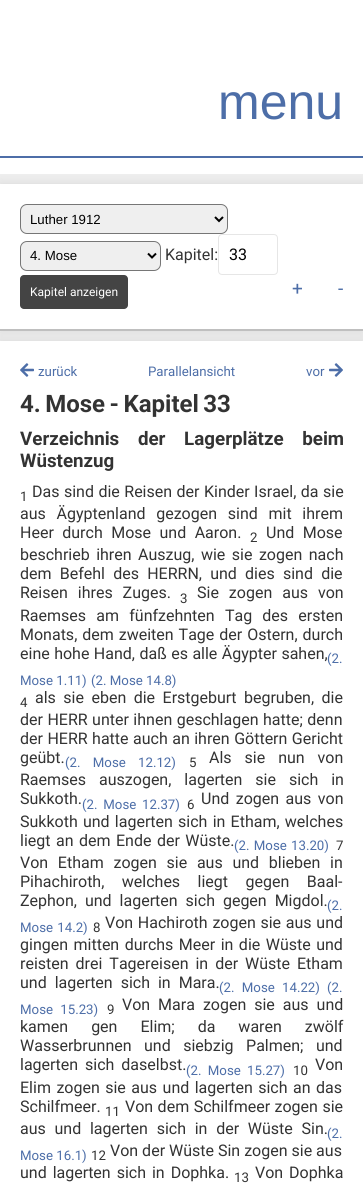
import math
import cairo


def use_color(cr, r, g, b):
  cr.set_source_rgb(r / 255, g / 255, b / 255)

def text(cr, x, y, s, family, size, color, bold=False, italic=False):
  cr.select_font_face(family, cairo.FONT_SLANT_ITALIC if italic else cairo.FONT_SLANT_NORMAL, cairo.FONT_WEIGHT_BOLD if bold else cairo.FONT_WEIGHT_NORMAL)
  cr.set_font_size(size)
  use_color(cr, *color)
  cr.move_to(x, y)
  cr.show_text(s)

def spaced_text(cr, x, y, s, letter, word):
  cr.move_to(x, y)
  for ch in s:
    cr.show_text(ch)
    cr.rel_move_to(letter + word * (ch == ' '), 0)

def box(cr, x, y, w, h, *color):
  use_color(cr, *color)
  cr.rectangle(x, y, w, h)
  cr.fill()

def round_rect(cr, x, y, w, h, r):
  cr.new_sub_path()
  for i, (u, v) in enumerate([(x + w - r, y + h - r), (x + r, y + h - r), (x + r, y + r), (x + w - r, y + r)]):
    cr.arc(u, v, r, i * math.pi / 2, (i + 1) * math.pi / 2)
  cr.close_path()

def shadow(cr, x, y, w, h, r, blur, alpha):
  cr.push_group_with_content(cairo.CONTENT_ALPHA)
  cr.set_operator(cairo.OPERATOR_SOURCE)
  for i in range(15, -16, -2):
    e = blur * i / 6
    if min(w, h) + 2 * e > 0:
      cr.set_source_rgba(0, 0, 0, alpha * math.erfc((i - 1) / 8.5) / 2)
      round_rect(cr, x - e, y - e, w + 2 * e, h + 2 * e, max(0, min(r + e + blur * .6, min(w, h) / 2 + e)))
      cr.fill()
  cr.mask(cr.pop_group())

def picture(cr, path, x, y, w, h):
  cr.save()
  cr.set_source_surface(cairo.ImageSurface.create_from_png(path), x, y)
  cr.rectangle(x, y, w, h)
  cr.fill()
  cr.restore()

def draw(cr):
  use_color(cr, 255, 255, 255)
  cr.paint()
  box(cr, 0, 156, 363, 2, 77, 110, 168)
  box(cr, 0, 174, 363, 167, 238, 238, 238)
  use_color(cr, 0, 0, 0)
  shadow(cr, 0, 184, 363, 147, 0, 5, 0.1)
  box(cr, 0, 184, 363, 145, 255, 255, 255)
  box(cr, 0, 329, 363, 2, 191, 191, 191)
  use_color(cr, 239, 239, 239)
  round_rect(cr, 20.5, 204.5, 207, 29, 6.5)
  cr.fill_preserve()
  use_color(cr, 118, 118, 118)
  cr.set_line_width(1)
  cr.stroke()
  cr.new_path()
  cr.move_to(215, 217)
  cr.line_to(219, 221)
  cr.line_to(223, 217)
  use_color(cr, 0, 0, 0)
  cr.set_line_width(2)
  cr.stroke()
  use_color(cr, 239, 239, 239)
  round_rect(cr, 20.5, 241.5, 140, 29, 6.5)
  cr.fill_preserve()
  use_color(cr, 118, 118, 118)
  cr.set_line_width(1)
  cr.stroke()
  cr.new_path()
  cr.move_to(148, 253.5)
  cr.line_to(152, 257.5)
  cr.line_to(156, 253.5)
  use_color(cr, 0, 0, 0)
  cr.set_line_width(2)
  cr.stroke()
  round_rect(cr, 218.5, 234.5, 59, 40, 3.5)
  use_color(cr, 230, 230, 230)
  cr.set_line_width(1)
  cr.stroke()
  use_color(cr, 68, 68, 68)
  round_rect(cr, 20, 275, 108, 34, 4)
  cr.fill()
  use_color(cr, 0, 0, 0)
  shadow(cr, 0, 341, 363, 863, 0, 5, 0.1)
  box(cr, 0, 341, 363, 848, 255, 255, 255)
  picture(cr, "img_01.png", 20, 363, 14, 14)
  picture(cr, "img_02.png", 329, 363, 14, 14)
  text(cr, 218, 119, "menu", "Liberation Sans", 50, (77, 110, 168))
  text(cr, 30, 224, "Luther 1912", "Liberation Sans", 13.25, (0, 0, 0))
  text(cr, 30, 260, "4. Mose", "Liberation Sans", 13.25, (0, 0, 0))
  text(cr, 165, 260, "Kapitel:", "Roboto", 16, (51, 51, 51))
  text(cr, 229, 260, "33", "Roboto", 16, (0, 0, 0))
  text(cr, 30, 296, "Kapitel anzeigen", "Roboto", 12, (255, 255, 255))
  text(cr, 292, 295, "+", "Roboto", 19, (77, 110, 168))
  text(cr, 338, 295, "-", "Roboto", 19, (77, 110, 168))
  text(cr, 38, 376, "zurück", "Roboto", 13.25, (77, 110, 168))
  text(cr, 148, 376, "Parallelansicht", "Roboto", 13.25, (77, 110, 168))
  text(cr, 306, 376, "vor", "Roboto", 13.25, (77, 110, 168))
  cr.select_font_face("Roboto", cairo.FONT_SLANT_NORMAL, cairo.FONT_WEIGHT_BOLD)
  cr.set_font_size(24)
  use_color(cr, 51, 51, 51)
  spaced_text(cr, 20, 412, "4. Mose - Kapitel 33", 0, -1.5)
  cr.set_font_size(18.75)
  spaced_text(cr, 20, 445, "Verzeichnis der Lagerplätze beim", 0, 14)
  text(cr, 20, 467, "Wüstenzug", "Roboto", 18.75, (51, 51, 51), bold=True)
  text(cr, 20, 501, "1", "Roboto", 13.25, (51, 51, 51))
  cr.set_font_size(16)
  spaced_text(cr, 32, 497, "Das sind die Reisen der Kinder Israel, da sie", 0, 0.5)
  spaced_text(cr, 20, 519, "aus Ägyptenland gezogen sind mit ihrem", 0, 6.75)
  spaced_text(cr, 20, 538, "Heer durch Mose und Aaron.", 0, 4.5)
  text(cr, 250, 542, "2", "Roboto", 13.25, (51, 51, 51))
  cr.set_font_size(16)
  spaced_text(cr, 266, 538, "Und Mose", 0, 4.5)
  spaced_text(cr, 20, 560, "beschrieb ihren Auszug, wie sie zogen nach", 0, 2.5)
  spaced_text(cr, 20, 579, "dem Befehl des HERRN, und dies sind die", 0, 4.25)
  spaced_text(cr, 20, 598, "Reisen ihres Zuges.", 0, 6)
  text(cr, 180, 603, "3", "Roboto", 13.25, (51, 51, 51))
  cr.set_font_size(16)
  spaced_text(cr, 197, 598, "Sie zogen aus von", 0, 6)
  spaced_text(cr, 20, 621, "Raemses am fünfzehnten Tag des ersten", 0, 6.25)
  spaced_text(cr, 20, 640, "Monats, dem zweiten Tage der Ostern, durch", 0, 1)
  spaced_text(cr, 20, 659, "eine hohe Hand, daß es alle Ägypter sahen,", 0, 0.5)
  text(cr, 327, 663, "(2.", "Roboto", 13.25, (77, 110, 168))
  text(cr, 20, 685, "Mose 1.11)", "Roboto", 13.25, (77, 110, 168))
  text(cr, 91, 685, "(2. Mose 14.8)", "Roboto", 13.25, (77, 110, 168))
  text(cr, 20, 707, "4", "Roboto", 13.25, (51, 51, 51))
  cr.set_font_size(16)
  spaced_text(cr, 35, 703, "als sie eben die Erstgeburt begruben, die", 0, 3.5)
  spaced_text(cr, 20, 725, "der HERR unter ihnen geschlagen hatte; denn", 0, 0.5)
  spaced_text(cr, 20, 744, "der HERR hatte auch an ihren Göttern Gericht", 0, 0.5)
  text(cr, 20, 763, "geübt.", "Roboto", 16, (51, 51, 51))
  cr.set_font_size(13.25)
  use_color(cr, 77, 110, 168)
  spaced_text(cr, 65, 767, "(2. Mose 12.12)", 0, 9)
  text(cr, 189, 767, "5", "Roboto", 13.25, (51, 51, 51))
  cr.set_font_size(16)
  spaced_text(cr, 209, 763, "Als sie nun von", 0, 9)
  spaced_text(cr, 20, 785, "Raemses auszogen, lagerten sie sich in", 0, 9)
  text(cr, 20, 804, "Sukkoth.", "Roboto", 16, (51, 51, 51))
  cr.set_font_size(13.25)
  use_color(cr, 77, 110, 168)
  spaced_text(cr, 82, 809, "(2. Mose 12.37)", 0, 2.5)
  text(cr, 187, 809, "6", "Roboto", 13.25, (51, 51, 51))
  cr.set_font_size(16)
  spaced_text(cr, 201, 804, "Und zogen aus von", 0, 2.5)
  spaced_text(cr, 20, 827, "Sukkoth und lagerten sich in Etham, welches", 0, 1.25)
  spaced_text(cr, 20, 846, "liegt an dem Ende der Wüste.", 0, 1.5)
  cr.set_font_size(13.25)
  use_color(cr, 77, 110, 168)
  spaced_text(cr, 234, 850, "(2. Mose 13.20)", 0, 1)
  text(cr, 336, 850, "7", "Roboto", 13.25, (51, 51, 51))
  cr.set_font_size(16)
  spaced_text(cr, 20, 868, "Von Etham zogen sie aus und blieben in", 0, 5.75)
  spaced_text(cr, 20, 887, "Pihachiroth, welches liegt gegen Baal-", 0, 13.5)
  spaced_text(cr, 20, 906, "Zephon, und lagerten sich gegen Migdol.", 0, 4)
  text(cr, 327, 910, "(2.", "Roboto", 13.25, (77, 110, 168))
  spaced_text(cr, 20, 932, "Mose 14.2)", 0, 1)
  text(cr, 93, 932, "8", "Roboto", 13.25, (51, 51, 51))
  cr.set_font_size(16)
  spaced_text(cr, 105, 928, "Von Hachiroth zogen sie aus und", 0, 0.75)
  spaced_text(cr, 20, 950, "gingen mitten durchs Meer in die Wüste und", 0, 1.5)
  spaced_text(cr, 20, 969, "reisten drei Tagereisen in der Wüste Etham", 0, 3)
  spaced_text(cr, 20, 988, "und lagerten sich in Mara.", 0, 4)
  cr.set_font_size(13.25)
  use_color(cr, 77, 110, 168)
  spaced_text(cr, 219, 992, "(2. Mose 14.22)", 0, 4)
  text(cr, 327, 992, "(2.", "Roboto", 13.25, (77, 110, 168))
  spaced_text(cr, 20, 1014, "Mose 15.23)", 0, 4)
  text(cr, 107, 1014, "9", "Roboto", 13.25, (51, 51, 51))
  cr.set_font_size(16)
  spaced_text(cr, 122, 1010, "Von Mara zogen sie aus und", 0, 4)
  spaced_text(cr, 20, 1032, "kamen gen Elim; da waren zwölf", 0, 19)
  spaced_text(cr, 20, 1051, "Wasserbrunnen und siebzig Palmen; und", 0, 8.5)
  spaced_text(cr, 20, 1070, "lagerten sich daselbst.", 0, 3)
  cr.set_font_size(13.25)
  use_color(cr, 77, 110, 168)
  spaced_text(cr, 186, 1075, "(2. Mose 15.27)", 0, 3)
  text(cr, 293, 1075, "10", "Roboto", 13.25, (51, 51, 51))
  text(cr, 315, 1070, "Von", "Roboto", 16, (51, 51, 51))
  spaced_text(cr, 20, 1093, "Elim zogen sie aus und lagerten sich an das", 0, 1.5)
  text(cr, 20, 1112, "Schilfmeer.", "Roboto", 16, (51, 51, 51))
  text(cr, 105, 1116, "11", "Roboto", 13.25, (51, 51, 51))
  cr.set_font_size(16)
  spaced_text(cr, 125, 1112, "Von dem Schilfmeer zogen sie", 0, 0.5)
  spaced_text(cr, 20, 1134, "aus und lagerten sich in der Wüste Sin.", 0, 4.75)
  text(cr, 327, 1138, "(2.", "Roboto", 13.25, (77, 110, 168))
  text(cr, 20, 1160, "Mose 16.1)", "Roboto", 13.25, (77, 110, 168))
  text(cr, 91, 1160, "12", "Roboto", 13.25, (51, 51, 51))
  text(cr, 110, 1156, "Von der Wüste Sin zogen sie aus", "Roboto", 16, (51, 51, 51))
  spaced_text(cr, 20, 1178, "und lagerten sich in Dophka.", 0, 2)
  text(cr, 234, 1182, "13", "Roboto", 13.25, (51, 51, 51))
  cr.set_font_size(16)
  spaced_text(cr, 255, 1178, "Von Dophka", 0, 2)


surface = cairo.ImageSurface(cairo.FORMAT_RGB24, 363, 1189)
cr = cairo.Context(surface)
options = cairo.FontOptions()
options.set_hint_metrics(cairo.HINT_METRICS_OFF)
options.set_hint_style(cairo.HINT_STYLE_NONE)
cr.set_font_options(options)
cr.set_miter_limit(4)
draw(cr)
surface.write_to_png("out.png")
